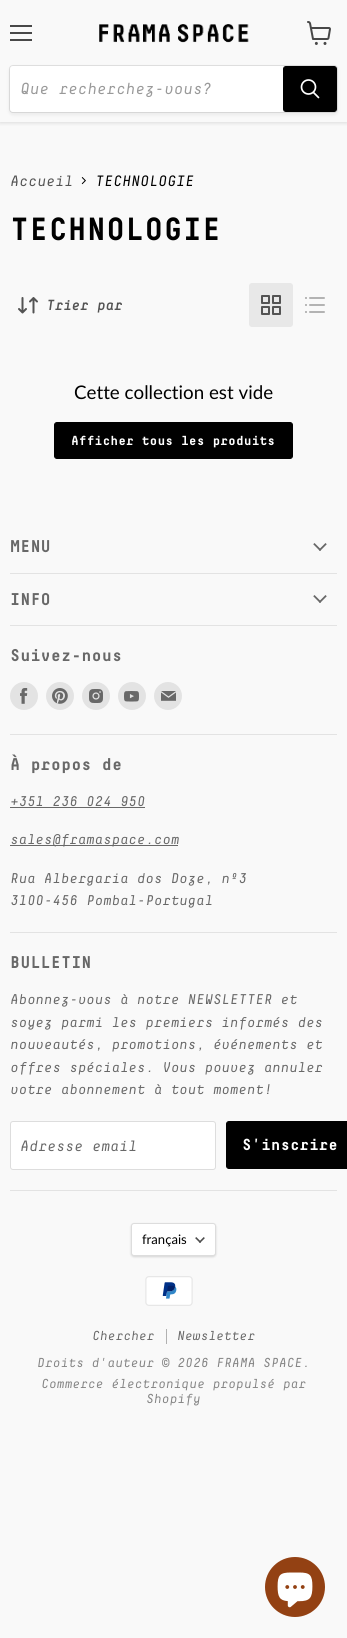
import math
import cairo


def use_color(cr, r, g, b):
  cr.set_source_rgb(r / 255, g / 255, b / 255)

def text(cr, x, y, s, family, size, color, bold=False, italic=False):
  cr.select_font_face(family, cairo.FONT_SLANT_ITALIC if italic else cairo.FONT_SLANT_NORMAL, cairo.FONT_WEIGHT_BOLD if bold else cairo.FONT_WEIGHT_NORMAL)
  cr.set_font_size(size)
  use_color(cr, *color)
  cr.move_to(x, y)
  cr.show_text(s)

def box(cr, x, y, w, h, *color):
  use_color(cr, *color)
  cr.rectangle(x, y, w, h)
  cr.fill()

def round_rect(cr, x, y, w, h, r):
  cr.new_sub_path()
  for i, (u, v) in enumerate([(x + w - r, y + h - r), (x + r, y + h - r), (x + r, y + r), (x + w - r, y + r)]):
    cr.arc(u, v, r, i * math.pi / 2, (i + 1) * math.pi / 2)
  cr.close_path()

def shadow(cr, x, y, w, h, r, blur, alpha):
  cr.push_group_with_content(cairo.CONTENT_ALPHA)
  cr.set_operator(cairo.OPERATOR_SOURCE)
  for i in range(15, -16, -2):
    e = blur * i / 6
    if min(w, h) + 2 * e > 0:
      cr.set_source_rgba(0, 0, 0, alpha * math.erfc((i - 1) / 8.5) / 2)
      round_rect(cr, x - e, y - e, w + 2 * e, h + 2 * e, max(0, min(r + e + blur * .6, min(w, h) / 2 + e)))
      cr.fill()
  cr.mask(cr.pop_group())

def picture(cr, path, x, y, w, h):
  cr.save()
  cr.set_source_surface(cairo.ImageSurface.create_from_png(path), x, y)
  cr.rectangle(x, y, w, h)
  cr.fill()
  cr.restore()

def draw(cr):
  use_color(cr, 249, 249, 249)
  cr.paint()
  cr.save()
  cr.rectangle(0, 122, 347, 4)
  cr.clip()
  use_color(cr, 125, 125, 125)
  shadow(cr, 0, 1, 347, 122, 0, 2, 0.25)
  cr.restore()
  box(cr, 10, 25, 22, 2, 72, 72, 72)
  box(cr, 10, 32, 22, 2, 72, 72, 72)
  box(cr, 10, 39, 22, 2, 72, 72, 72)
  picture(cr, "img_01.png", 307, 21, 24, 24)
  picture(cr, "img_02.png", 99, 24, 150, 19)
  use_color(cr, 125, 125, 125)
  shadow(cr, 9, 67, 329, 48, 4, 1.5, 0.11)
  round_rect(cr, 9.5, 65.5, 328, 47, 3.5)
  cr.set_source_rgba(0.49, 0.49, 0.49, 0.2)
  cr.set_line_width(1)
  cr.stroke()
  use_color(cr, 255, 255, 255)
  cr.new_path()
  cr.move_to(13, 66)
  cr.line_to(283, 66)
  cr.line_to(283, 112)
  cr.line_to(13, 112)
  cr.curve_to(11.5, 112, 10, 110.5, 10, 109)
  cr.line_to(10, 69)
  cr.curve_to(10, 67.5, 11.5, 66, 13, 66)
  cr.close_path()
  cr.fill()
  use_color(cr, 0, 0, 0)
  round_rect(cr, 283.5, 66.5, 53, 45, 2.5)
  cr.fill_preserve()
  cr.stroke()
  cr.new_path()
  cr.move_to(318.5, 97.5)
  cr.line_to(313.5, 92.5)
  use_color(cr, 255, 255, 255)
  cr.set_line_width(1.7)
  cr.set_line_cap(cairo.LINE_CAP_ROUND)
  cr.stroke()
  cr.arc(308.5, 87, 7, 0, 2 * math.pi)
  cr.set_line_cap(cairo.LINE_CAP_BUTT)
  cr.stroke()
  picture(cr, "img_03.png", 81, 177, 5, 8)
  picture(cr, "img_04.png", 18, 297, 20, 17)
  use_color(cr, 232, 232, 232)
  round_rect(cr, 249, 283, 44, 44, 3)
  cr.fill()
  picture(cr, "img_05.png", 261, 295, 20, 20)
  picture(cr, "img_06.png", 305, 297, 20, 16)
  use_color(cr, 0, 0, 0)
  round_rect(cr, 54.5, 422.5, 238, 36, 2.5)
  cr.fill_preserve()
  cr.set_line_width(1)
  cr.stroke()
  box(cr, 10, 573, 327, 1, 227, 227, 227)
  picture(cr, "img_07.png", 313, 543, 14, 8)
  box(cr, 10, 625, 327, 1, 227, 227, 227)
  picture(cr, "img_07.png", 313, 595, 14, 8)
  box(cr, 10, 734, 327, 1, 227, 227, 227)
  cr.arc(24, 696, 14, 0, 2 * math.pi)
  cr.fill()
  picture(cr, "img_08.png", 20, 688, 8, 16)
  cr.arc(60, 696, 14, 0, 2 * math.pi)
  cr.fill()
  picture(cr, "img_09.png", 52, 688, 16, 16)
  cr.arc(96, 696, 14, 0, 2 * math.pi)
  cr.fill()
  picture(cr, "img_10.png", 89, 689, 14, 14)
  cr.arc(132, 696, 14, 0, 2 * math.pi)
  cr.fill()
  picture(cr, "img_11.png", 124, 691, 15, 11)
  cr.arc(168, 696, 14, 0, 2 * math.pi)
  cr.fill()
  picture(cr, "img_12.png", 161, 691, 15, 10)
  box(cr, 10, 932, 327, 1, 227, 227, 227)
  box(cr, 10, 807, 135, 1, 104, 104, 104)
  box(cr, 10, 845, 168, 1, 104, 104, 104)
  box(cr, 10, 1190, 327, 1, 227, 227, 227)
  use_color(cr, 255, 255, 255)
  round_rect(cr, 10.5, 1121.5, 205, 48, 2.5)
  cr.fill_preserve()
  use_color(cr, 221, 221, 221)
  cr.stroke()
  use_color(cr, 0, 0, 0)
  round_rect(cr, 226.5, 1121.5, 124, 47, 2.5)
  cr.fill_preserve()
  cr.stroke()
  use_color(cr, 0, 0, 0)
  shadow(cr, 131, 1224, 85, 33, 3, 1, 0.15)
  use_color(cr, 255, 255, 255)
  round_rect(cr, 131.5, 1223.5, 84, 32, 2.5)
  cr.fill_preserve()
  use_color(cr, 221, 221, 221)
  cr.stroke()
  picture(cr, "img_13.png", 195, 1237, 10, 6)
  picture(cr, "img_14.png", 145, 1276, 48, 30)
  box(cr, 166, 1329, 1, 15, 177, 177, 177)
  use_color(cr, 147, 65, 19)
  cr.arc(295, 1587, 30, 0, 2 * math.pi)
  cr.fill()
  picture(cr, "img_15.png", 277, 1572, 36, 36)
  text(cr, 20, 94, "Que recherchez-vous?", "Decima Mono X", 16, (153, 153, 153), italic=True)
  text(cr, 10, 186, "Accueil", "Decima Mono X", 15, (83, 83, 83), italic=True)
  text(cr, 95, 186, "TECHNOLOGIE", "Decima Mono X", 15, (0, 0, 0), italic=True)
  text(cr, 10, 240, "TECHNOLOGIE", "Decima Mono X", 32, (0, 0, 0), bold=True)
  text(cr, 46, 310, "Trier par", "Decima Mono X", 14.1, (83, 83, 83), bold=True, italic=True)
  text(cr, 74, 399, "Cette collection est vide", "Lato", 18.75, (0, 0, 0))
  text(cr, 71, 445, "Afficher tous les produits", "Decima Mono X", 13.1, (255, 255, 255), bold=True)
  text(cr, 10, 552, "MENU", "Decima Mono X", 17, (104, 104, 104), bold=True)
  text(cr, 10, 605, "INFO", "Decima Mono X", 17, (104, 104, 104), bold=True)
  text(cr, 10, 661, "Suivez-nous", "Decima Mono X", 17, (104, 104, 104), bold=True)
  text(cr, 10, 770, "À propos de", "Decima Mono X", 17, (104, 104, 104), bold=True)
  text(cr, 10, 806, "+351 236 024 950", "Decima Mono X", 14.1, (104, 104, 104), italic=True)
  text(cr, 10, 844, "sales@framaspace.com", "Decima Mono X", 14.1, (104, 104, 104), italic=True)
  text(cr, 10, 883, "Rua Albergaria dos Doze, nº3", "Decima Mono X", 14.1, (104, 104, 104), italic=True)
  text(cr, 10, 905, "3100-456 Pombal-Portugal", "Decima Mono X", 14.1, (104, 104, 104), italic=True)
  text(cr, 10, 968, "BULLETIN", "Decima Mono X", 17, (104, 104, 104), bold=True)
  text(cr, 10, 1004, "Abonnez-vous à notre NEWSLETTER et", "Decima Mono X", 14.1, (104, 104, 104), italic=True)
  text(cr, 10, 1027, "soyez parmi les premiers informés des", "Decima Mono X", 14.1, (104, 104, 104), italic=True)
  text(cr, 10, 1049, "nouveautés, promotions, événements et", "Decima Mono X", 14.1, (104, 104, 104), italic=True)
  text(cr, 10, 1072, "offres spéciales. Vous pouvez annuler", "Decima Mono X", 14.1, (104, 104, 104), italic=True)
  text(cr, 10, 1094, "votre abonnement à tout moment!", "Decima Mono X", 14.1, (104, 104, 104), italic=True)
  text(cr, 20, 1151, "Adresse email", "Decima Mono X", 15, (104, 104, 104), italic=True)
  text(cr, 242, 1150, "S'inscrire", "Decima Mono X", 16, (255, 255, 255), bold=True)
  text(cr, 142, 1244, "français", "Lato", 13.1, (0, 0, 0))
  text(cr, 92, 1340, "Chercher", "Decima Mono X", 13, (104, 104, 104), italic=True)
  text(cr, 177, 1340, "Newsletter", "Decima Mono X", 13, (104, 104, 104), italic=True)
  text(cr, 37, 1367, "Droits d'auteur © 2026 FRAMA SPACE.", "Decima Mono X", 13, (133, 133, 133), italic=True)
  text(cr, 41, 1388, "Commerce électronique propulsé par", "Decima Mono X", 13, (133, 133, 133), italic=True)
  text(cr, 146, 1403, "Shopify", "Decima Mono X", 13, (133, 133, 133), italic=True)


surface = cairo.ImageSurface(cairo.FORMAT_RGB24, 347, 1638)
cr = cairo.Context(surface)
options = cairo.FontOptions()
options.set_hint_metrics(cairo.HINT_METRICS_OFF)
options.set_hint_style(cairo.HINT_STYLE_NONE)
cr.set_font_options(options)
cr.set_miter_limit(4)
draw(cr)
surface.write_to_png("out.png")
